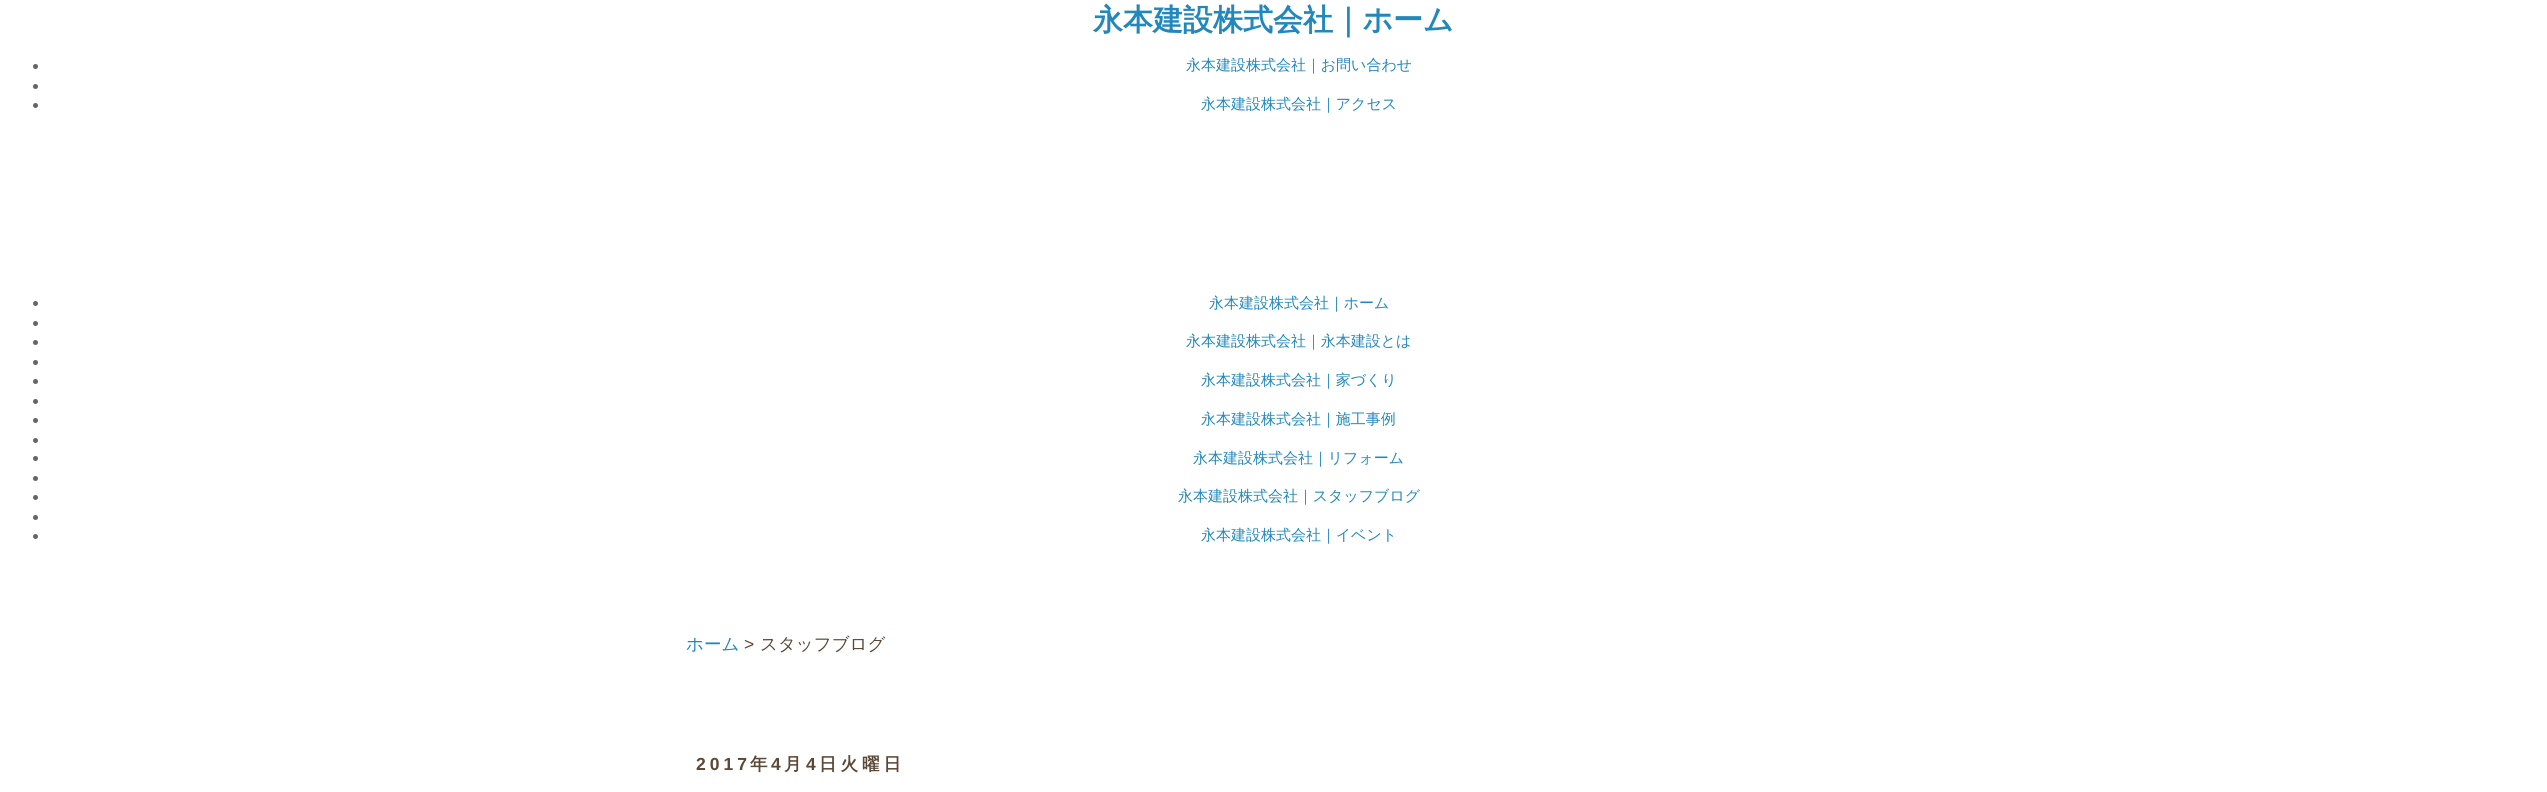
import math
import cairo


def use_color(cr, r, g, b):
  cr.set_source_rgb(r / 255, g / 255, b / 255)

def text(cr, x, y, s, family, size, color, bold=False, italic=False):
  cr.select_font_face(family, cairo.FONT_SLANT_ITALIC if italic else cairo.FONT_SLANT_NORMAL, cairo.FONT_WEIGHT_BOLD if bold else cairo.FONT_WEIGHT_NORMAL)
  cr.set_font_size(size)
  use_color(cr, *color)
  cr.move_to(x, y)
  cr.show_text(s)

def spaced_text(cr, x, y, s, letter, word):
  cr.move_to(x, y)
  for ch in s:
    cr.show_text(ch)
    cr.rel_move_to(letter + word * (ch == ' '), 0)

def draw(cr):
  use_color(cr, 255, 255, 255)
  cr.paint()
  use_color(cr, 102, 102, 102)
  cr.arc(35.5, 66.5, 2.5, 0, 2 * math.pi)
  cr.fill()
  cr.arc(35.5, 86.5, 2.5, 0, 2 * math.pi)
  cr.fill()
  cr.arc(35.5, 105.5, 2.5, 0, 2 * math.pi)
  cr.fill()
  cr.arc(35.5, 303.5, 2.5, 0, 2 * math.pi)
  cr.fill()
  cr.arc(35.5, 323.5, 2.5, 0, 2 * math.pi)
  cr.fill()
  cr.arc(35.5, 342.5, 2.5, 0, 2 * math.pi)
  cr.fill()
  cr.arc(35.5, 362.5, 2.5, 0, 2 * math.pi)
  cr.fill()
  cr.arc(35.5, 381.5, 2.5, 0, 2 * math.pi)
  cr.fill()
  cr.arc(35.5, 401.5, 2.5, 0, 2 * math.pi)
  cr.fill()
  cr.arc(35.5, 420.5, 2.5, 0, 2 * math.pi)
  cr.fill()
  cr.arc(35.5, 440.5, 2.5, 0, 2 * math.pi)
  cr.fill()
  cr.arc(35.5, 458.5, 2.5, 0, 2 * math.pi)
  cr.fill()
  cr.arc(35.5, 478.5, 2.5, 0, 2 * math.pi)
  cr.fill()
  cr.arc(35.5, 497.5, 2.5, 0, 2 * math.pi)
  cr.fill()
  cr.arc(35.5, 517.5, 2.5, 0, 2 * math.pi)
  cr.fill()
  cr.arc(35.5, 536.5, 2.5, 0, 2 * math.pi)
  cr.fill()
  text(cr, 1093, 30, "永本建設株式会社｜ホーム", "WenQuanYi Zen Hei", 30, (34, 136, 187), bold=True)
  text(cr, 1186, 70, "永本建設株式会社｜お問い合わせ", "WenQuanYi Zen Hei Medium", 15, (34, 136, 187))
  text(cr, 1201, 109, "永本建設株式会社｜アクセス", "WenQuanYi Zen Hei Medium", 15, (34, 136, 187))
  text(cr, 1209, 308, "永本建設株式会社｜ホーム", "WenQuanYi Zen Hei Medium", 15, (34, 136, 187))
  text(cr, 1186, 346, "永本建設株式会社｜永本建設とは", "WenQuanYi Zen Hei Medium", 15, (34, 136, 187))
  text(cr, 1201, 385, "永本建設株式会社｜家づくり", "WenQuanYi Zen Hei Medium", 15, (34, 136, 187))
  text(cr, 1201, 424, "永本建設株式会社｜施工事例", "WenQuanYi Zen Hei Medium", 15, (34, 136, 187))
  text(cr, 1193, 463, "永本建設株式会社｜リフォーム", "WenQuanYi Zen Hei Medium", 15, (34, 136, 187))
  text(cr, 1178, 501, "永本建設株式会社｜スタッフブログ", "WenQuanYi Zen Hei Medium", 15, (34, 136, 187))
  text(cr, 1201, 540, "永本建設株式会社｜イベント", "WenQuanYi Zen Hei Medium", 15, (34, 136, 187))
  text(cr, 686, 650, "ホーム", "WenQuanYi Zen Hei Medium", 17.5, (34, 136, 187))
  text(cr, 744, 650, ">", "Liberation Sans", 17.5, (92, 72, 54))
  text(cr, 760, 650, "スタッフブログ", "WenQuanYi Zen Hei Medium", 17.5, (92, 72, 54))
  cr.select_font_face("Liberation Sans", cairo.FONT_SLANT_NORMAL, cairo.FONT_WEIGHT_BOLD)
  spaced_text(cr, 696, 770, "2017", 4, 0)
  cr.select_font_face("WenQuanYi Zen Hei", cairo.FONT_SLANT_NORMAL, cairo.FONT_WEIGHT_BOLD)
  spaced_text(cr, 750, 770, "年", 4, 0)
  cr.select_font_face("Liberation Sans", cairo.FONT_SLANT_NORMAL, cairo.FONT_WEIGHT_BOLD)
  spaced_text(cr, 771, 770, "4", 4, 0)
  cr.select_font_face("WenQuanYi Zen Hei", cairo.FONT_SLANT_NORMAL, cairo.FONT_WEIGHT_BOLD)
  spaced_text(cr, 784, 770, "月", 4, 0)
  cr.select_font_face("Liberation Sans", cairo.FONT_SLANT_NORMAL, cairo.FONT_WEIGHT_BOLD)
  spaced_text(cr, 806, 770, "4", 4, 0)
  cr.select_font_face("WenQuanYi Zen Hei", cairo.FONT_SLANT_NORMAL, cairo.FONT_WEIGHT_BOLD)
  spaced_text(cr, 819, 770, "日火曜日", 4, 0)


surface = cairo.ImageSurface(cairo.FORMAT_RGB24, 2547, 792)
cr = cairo.Context(surface)
options = cairo.FontOptions()
options.set_hint_metrics(cairo.HINT_METRICS_OFF)
options.set_hint_style(cairo.HINT_STYLE_NONE)
cr.set_font_options(options)
cr.set_miter_limit(4)
draw(cr)
surface.write_to_png("out.png")
